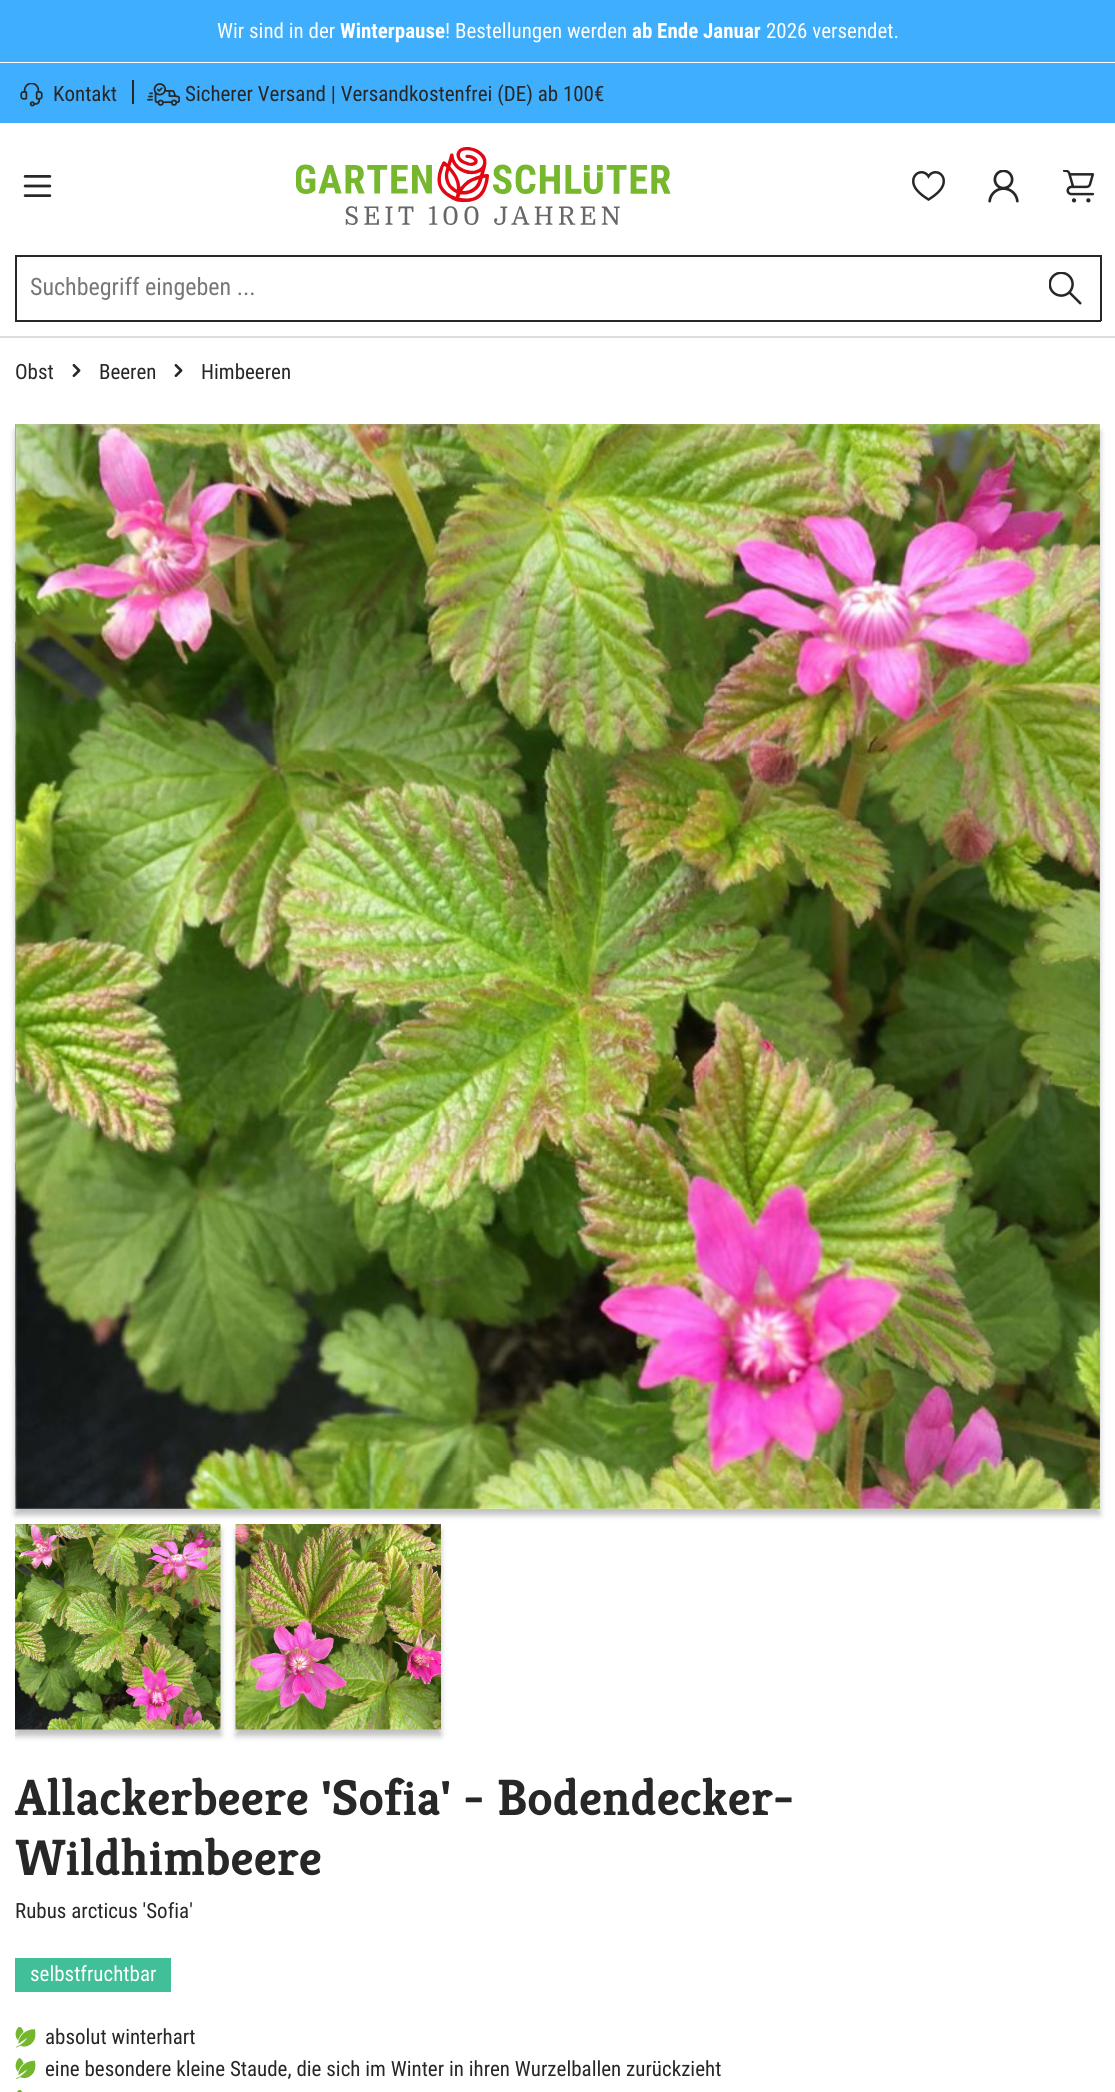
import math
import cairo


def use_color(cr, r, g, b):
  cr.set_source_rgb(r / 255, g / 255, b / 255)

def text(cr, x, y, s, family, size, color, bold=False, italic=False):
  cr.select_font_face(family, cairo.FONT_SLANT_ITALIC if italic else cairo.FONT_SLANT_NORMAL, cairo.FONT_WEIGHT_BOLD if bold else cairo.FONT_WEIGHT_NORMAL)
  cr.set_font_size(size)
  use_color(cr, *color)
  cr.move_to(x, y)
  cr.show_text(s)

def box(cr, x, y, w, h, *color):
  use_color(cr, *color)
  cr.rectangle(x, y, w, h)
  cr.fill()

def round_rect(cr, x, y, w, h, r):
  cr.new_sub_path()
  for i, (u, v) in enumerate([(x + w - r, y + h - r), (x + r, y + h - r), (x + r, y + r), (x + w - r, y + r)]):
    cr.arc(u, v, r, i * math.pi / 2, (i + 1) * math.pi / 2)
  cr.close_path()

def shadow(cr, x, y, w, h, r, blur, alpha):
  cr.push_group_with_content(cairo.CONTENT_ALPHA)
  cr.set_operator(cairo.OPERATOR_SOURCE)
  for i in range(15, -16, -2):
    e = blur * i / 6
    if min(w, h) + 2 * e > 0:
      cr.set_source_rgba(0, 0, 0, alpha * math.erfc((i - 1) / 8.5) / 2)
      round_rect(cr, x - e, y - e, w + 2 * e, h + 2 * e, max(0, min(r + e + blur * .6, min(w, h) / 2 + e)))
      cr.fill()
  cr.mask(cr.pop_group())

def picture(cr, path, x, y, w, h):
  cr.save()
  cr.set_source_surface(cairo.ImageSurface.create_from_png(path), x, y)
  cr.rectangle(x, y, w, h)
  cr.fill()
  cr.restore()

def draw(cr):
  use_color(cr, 255, 255, 255)
  cr.paint()
  box(cr, 0, 0, 1115, 62, 62, 174, 253)
  box(cr, 0, 63, 1115, 60, 62, 174, 253)
  picture(cr, "img_01.png", 20, 83, 23, 24)
  box(cr, 132, 80, 2, 24, 39, 39, 39)
  picture(cr, "img_02.png", 147, 83, 33, 23)
  box(cr, 0, 336, 1115, 2, 221, 221, 221)
  picture(cr, "img_03.png", 23, 175, 29, 22)
  picture(cr, "img_04.png", 296, 147, 375, 78)
  picture(cr, "img_05.png", 912, 171, 33, 30)
  picture(cr, "img_06.png", 988, 170, 31, 33)
  picture(cr, "img_07.png", 1062, 170, 33, 33)
  box(cr, 15, 255, 1086, 2, 39, 39, 39)
  box(cr, 15, 320, 1017, 2, 39, 39, 39)
  box(cr, 15, 255, 2, 66, 39, 39, 39)
  box(cr, 1100, 255, 2, 66, 39, 39, 39)
  box(cr, 1031, 320, 70, 2, 39, 39, 39)
  picture(cr, "img_08.png", 1049, 272, 33, 33)
  picture(cr, "img_09.png", 72, 364, 9, 13)
  picture(cr, "img_09.png", 174, 364, 9, 13)
  cr.save()
  cr.set_fill_rule(cairo.FILL_RULE_EVEN_ODD)
  cr.new_path()
  cr.move_to(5, 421)
  cr.line_to(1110, 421)
  cr.line_to(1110, 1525)
  cr.line_to(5, 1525)
  cr.close_path()
  cr.move_to(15, 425)
  cr.line_to(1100, 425)
  cr.line_to(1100, 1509)
  cr.line_to(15, 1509)
  cr.close_path()
  cr.clip()
  use_color(cr, 0, 0, 0)
  shadow(cr, 15, 431, 1085, 1084, 0, 3, 0.25)
  cr.restore()
  picture(cr, "img_10.png", 15, 424, 1, 1085)
  picture(cr, "img_11.png", 15, 424, 1085, 1085)
  picture(cr, "img_12.png", 1099, 438, 1, 1001)
  cr.save()
  cr.rectangle(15, 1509, 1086, 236)
  cr.clip()
  use_color(cr, 0, 0, 0)
  shadow(cr, 15, 1530, 206, 206, 0, 3, 0.25)
  cr.restore()
  picture(cr, "img_13.png", 15, 1524, 206, 206)
  use_color(cr, 0, 0, 0)
  shadow(cr, 236, 1530, 205, 206, 0, 3, 0.25)
  picture(cr, "img_14.png", 235, 1524, 206, 206)
  box(cr, 15, 1958, 156, 34, 64, 191, 153)
  picture(cr, "img_15.png", 15, 2027, 21, 21)
  picture(cr, "img_16.png", 15, 2058, 21, 21)
  picture(cr, "img_17.png", 17, 2090, 6, 2)
  text(cr, 217, 38, "Wir sind in der", "Roboto Condensed", 21, (255, 255, 255))
  text(cr, 340, 38, "Winterpause", "Roboto Condensed", 21, (255, 255, 255), bold=True)
  text(cr, 445, 38, "! Bestellungen werden", "Roboto Condensed", 21, (255, 255, 255))
  text(cr, 632, 38, "ab Ende Januar", "Roboto Condensed", 21, (255, 255, 255), bold=True)
  text(cr, 766, 38, "2026 versendet.", "Roboto Condensed", 21, (255, 255, 255))
  text(cr, 53, 101, "Kontakt", "Roboto Condensed", 21, (39, 39, 39))
  text(cr, 185, 101, "Sicherer Versand | Versandkostenfrei (DE) ab 100€", "Roboto Condensed", 21, (39, 39, 39))
  text(cr, 30, 295, "Suchbegriff eingeben ...", "Roboto Condensed", 24, (119, 119, 119))
  text(cr, 15, 379, "Obst", "Roboto Condensed", 21, (39, 39, 39))
  text(cr, 99, 379, "Beeren", "Roboto Condensed", 21, (39, 39, 39))
  text(cr, 201, 379, "Himbeeren", "Roboto Condensed", 21, (39, 39, 39))
  text(cr, 15, 1815, "Allackerbeere 'Sofia' - Bodendecker-", "Kreon Light", 51, (39, 39, 39))
  text(cr, 15, 1875, "Wildhimbeere", "Kreon Light", 51, (39, 39, 39))
  text(cr, 15, 1918, "Rubus arcticus 'Sofia'", "Roboto Condensed", 21, (39, 39, 39))
  text(cr, 30, 1981, "selbstfruchtbar", "Roboto Condensed", 21, (255, 255, 255))
  text(cr, 45, 2044, "absolut winterhart", "Roboto Condensed", 21, (39, 39, 39))
  text(cr, 45, 2076, "eine besondere kleine Staude, die sich im Winter in ihren Wurzelballen zurückzieht", "Roboto Condensed", 21, (39, 39, 39))


surface = cairo.ImageSurface(cairo.FORMAT_RGB24, 1115, 2092)
cr = cairo.Context(surface)
options = cairo.FontOptions()
options.set_hint_metrics(cairo.HINT_METRICS_OFF)
options.set_hint_style(cairo.HINT_STYLE_NONE)
cr.set_font_options(options)
cr.set_miter_limit(4)
draw(cr)
surface.write_to_png("out.png")
